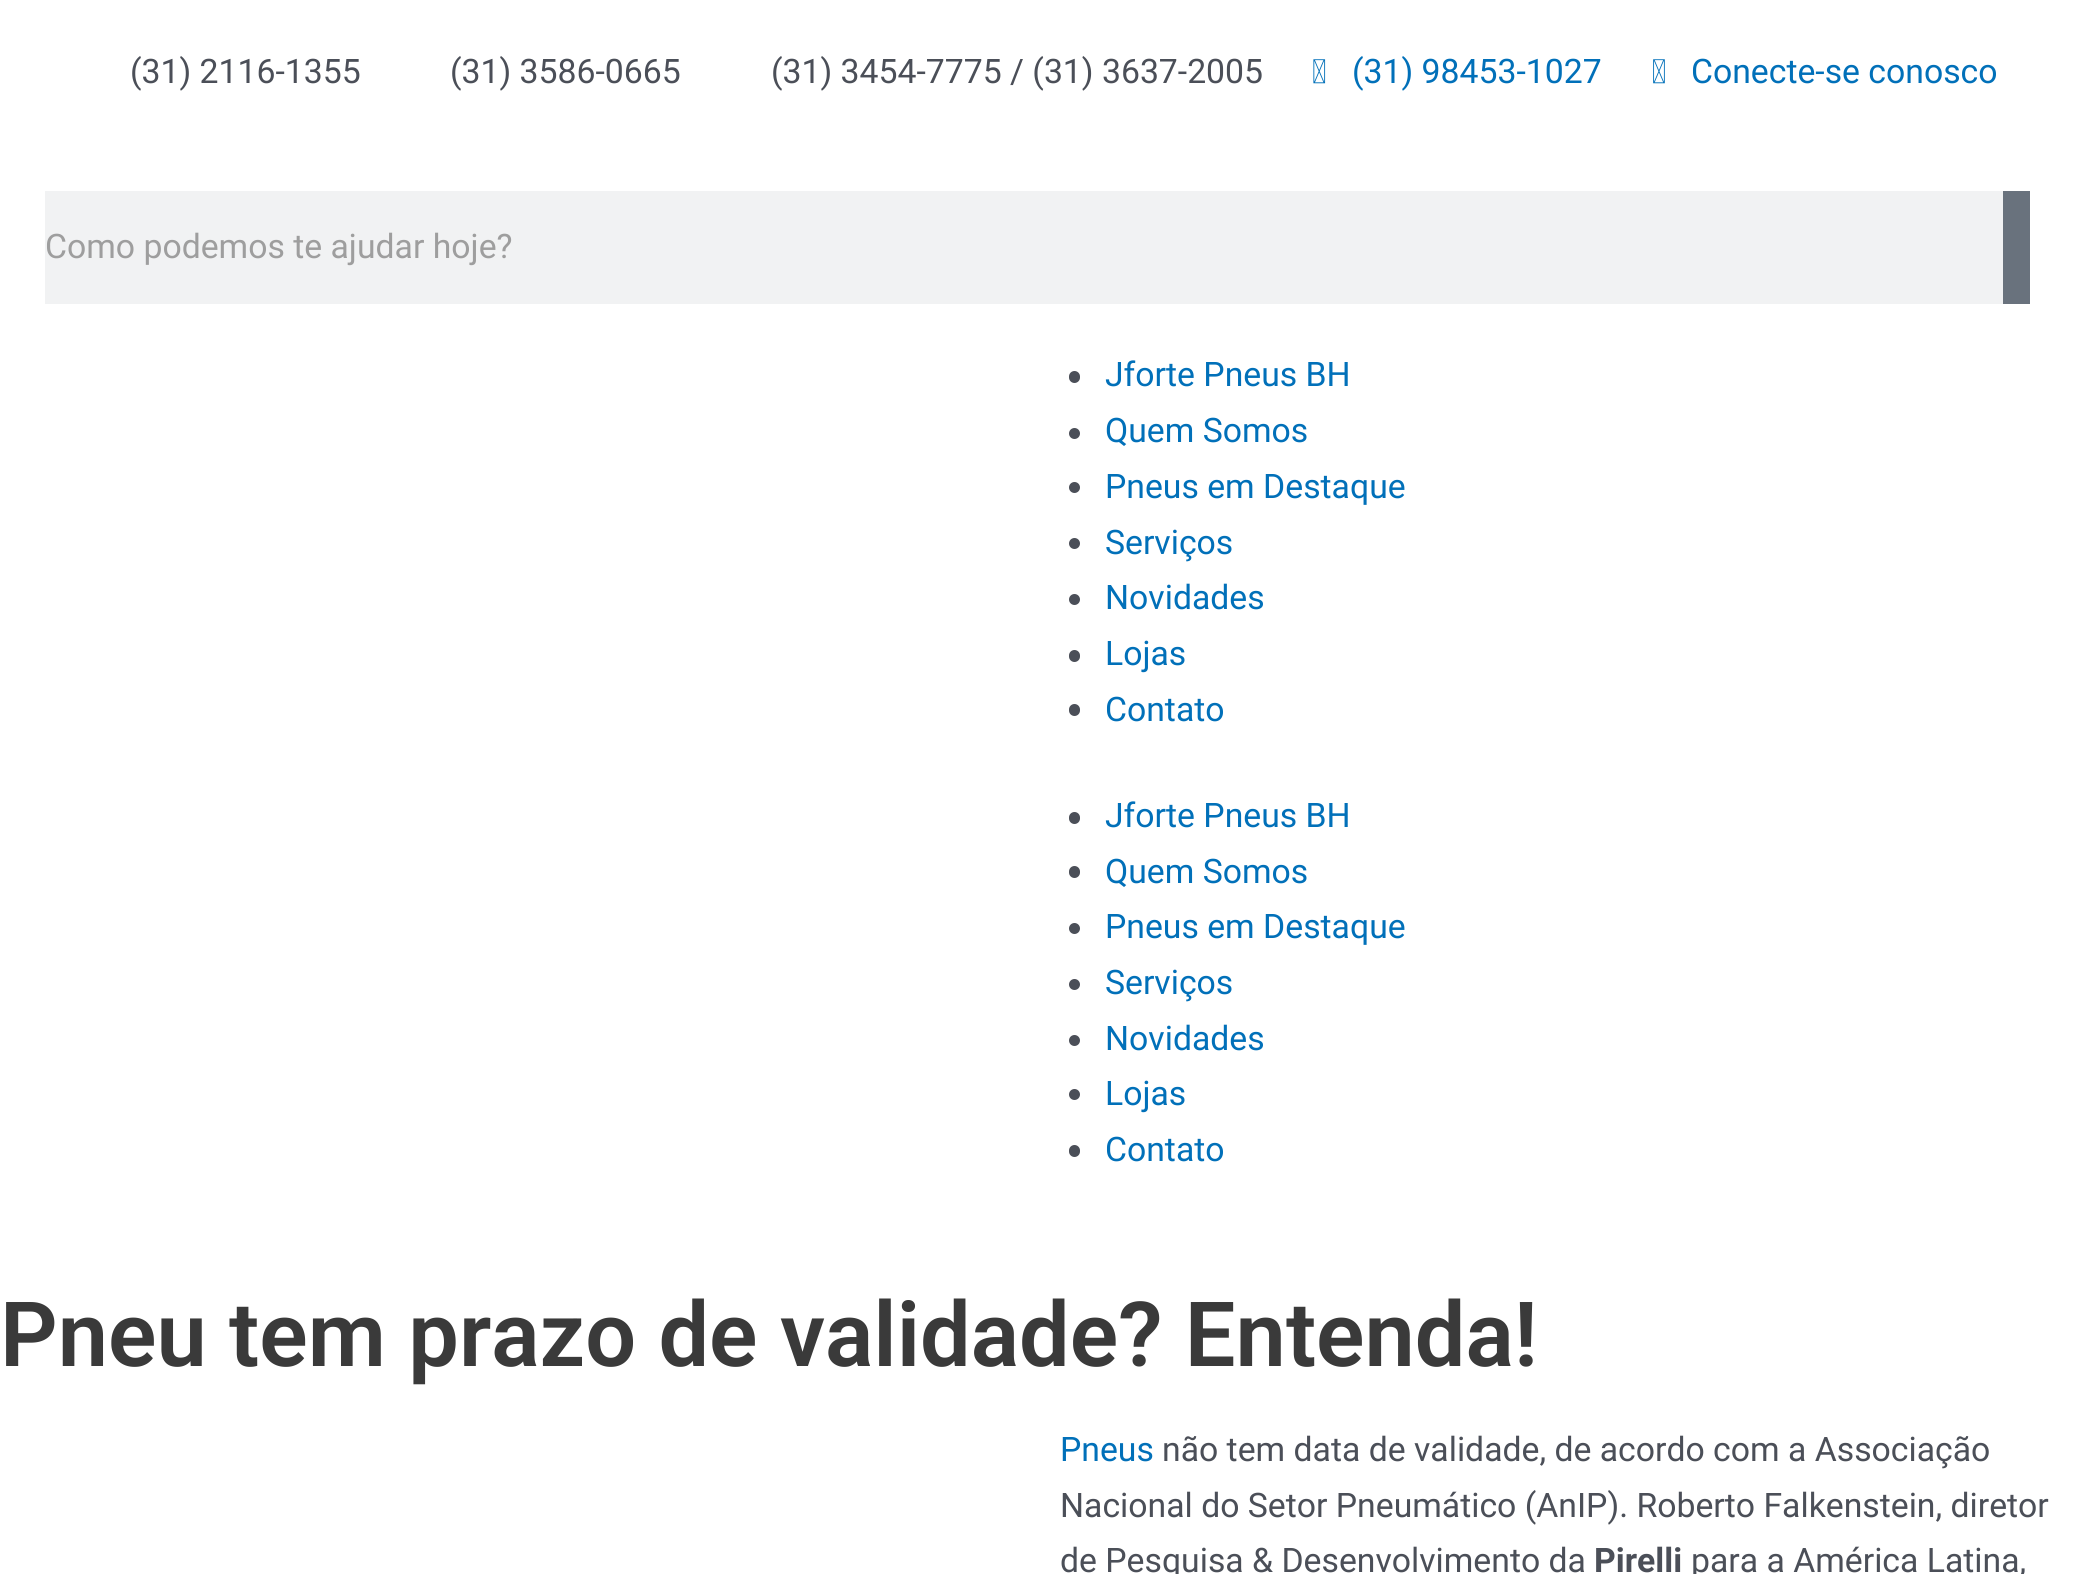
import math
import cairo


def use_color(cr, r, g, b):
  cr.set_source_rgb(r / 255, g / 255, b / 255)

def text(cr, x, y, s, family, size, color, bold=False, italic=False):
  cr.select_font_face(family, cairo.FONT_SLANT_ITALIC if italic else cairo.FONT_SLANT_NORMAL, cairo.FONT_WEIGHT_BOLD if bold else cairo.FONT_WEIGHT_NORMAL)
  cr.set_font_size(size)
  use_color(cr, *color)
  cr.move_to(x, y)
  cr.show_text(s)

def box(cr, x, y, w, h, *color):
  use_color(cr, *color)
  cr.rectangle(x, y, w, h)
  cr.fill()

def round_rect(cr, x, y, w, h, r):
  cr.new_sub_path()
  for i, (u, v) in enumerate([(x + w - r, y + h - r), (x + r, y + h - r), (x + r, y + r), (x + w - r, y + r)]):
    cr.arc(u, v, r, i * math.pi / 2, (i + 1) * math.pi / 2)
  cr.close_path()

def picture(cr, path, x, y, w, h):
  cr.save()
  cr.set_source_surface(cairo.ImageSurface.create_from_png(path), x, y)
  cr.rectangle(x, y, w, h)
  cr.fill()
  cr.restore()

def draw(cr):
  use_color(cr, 255, 255, 255)
  cr.paint()
  picture(cr, "img_01.png", 1313, 59, 13, 25)
  picture(cr, "img_02.png", 1653, 59, 12, 25)
  box(cr, 45, 191, 1958, 113, 241, 242, 243)
  box(cr, 2003, 191, 27, 113, 105, 114, 125)
  use_color(cr, 75, 79, 88)
  round_rect(cr, 1069, 371, 11, 12, 5.5)
  cr.fill()
  cr.arc(1074.5, 433.5, 5.5, 0, 2 * math.pi)
  cr.fill()
  cr.arc(1074.5, 487.5, 5.5, 0, 2 * math.pi)
  cr.fill()
  cr.arc(1074.5, 543.5, 5.5, 0, 2 * math.pi)
  cr.fill()
  cr.arc(1074.5, 599.5, 5.5, 0, 2 * math.pi)
  cr.fill()
  round_rect(cr, 1069, 650, 11, 12, 5.5)
  cr.fill()
  round_rect(cr, 1069, 704, 11, 12, 5.5)
  cr.fill()
  round_rect(cr, 1069, 812, 11, 12, 5.5)
  cr.fill()
  round_rect(cr, 1069, 866, 11, 12, 5.5)
  cr.fill()
  cr.arc(1074.5, 928.5, 5.5, 0, 2 * math.pi)
  cr.fill()
  cr.arc(1074.5, 984.5, 5.5, 0, 2 * math.pi)
  cr.fill()
  cr.arc(1074.5, 1040.5, 5.5, 0, 2 * math.pi)
  cr.fill()
  cr.arc(1074.5, 1094.5, 5.5, 0, 2 * math.pi)
  cr.fill()
  round_rect(cr, 1069, 1145, 11, 12, 5.5)
  cr.fill()
  text(cr, 130, 83, "(31) 2116-1355", "Roboto", 33.75, (75, 79, 88))
  text(cr, 450, 83, "(31) 3586-0665", "Roboto", 33.75, (75, 79, 88))
  text(cr, 771, 83, "(31) 3454-7775 / (31) 3637-2005", "Roboto", 33.75, (75, 79, 88))
  text(cr, 1352, 83, "(31) 98453-1027", "Roboto", 33.75, (1, 112, 185))
  text(cr, 1691, 83, "Conecte-se conosco", "Roboto", 33.75, (1, 112, 185))
  text(cr, 45, 258, "Como podemos te ajudar hoje?", "Roboto", 33.75, (158, 158, 158))
  text(cr, 1105, 386, "Jforte Pneus BH", "Roboto", 33.75, (1, 112, 185))
  text(cr, 1105, 442, "Quem Somos", "Roboto", 33.75, (1, 112, 185))
  text(cr, 1105, 498, "Pneus em Destaque", "Roboto", 33.75, (1, 112, 185))
  text(cr, 1105, 554, "Serviços", "Roboto", 33.75, (1, 112, 185))
  text(cr, 1105, 609, "Novidades", "Roboto", 33.75, (1, 112, 185))
  text(cr, 1105, 665, "Lojas", "Roboto", 33.75, (1, 112, 185))
  text(cr, 1105, 721, "Contato", "Roboto", 33.75, (1, 112, 185))
  text(cr, 1105, 827, "Jforte Pneus BH", "Roboto", 33.75, (1, 112, 185))
  text(cr, 1105, 883, "Quem Somos", "Roboto", 33.75, (1, 112, 185))
  text(cr, 1105, 938, "Pneus em Destaque", "Roboto", 33.75, (1, 112, 185))
  text(cr, 1105, 994, "Serviços", "Roboto", 33.75, (1, 112, 185))
  text(cr, 1105, 1050, "Novidades", "Roboto", 33.75, (1, 112, 185))
  text(cr, 1105, 1105, "Lojas", "Roboto", 33.75, (1, 112, 185))
  text(cr, 1105, 1161, "Contato", "Roboto", 33.75, (1, 112, 185))
  text(cr, 0, 1366, "Pneu tem prazo de validade? Entenda!", "Roboto SemiBold", 90, (58, 58, 58))
  text(cr, 1060, 1461, "Pneus", "Roboto", 33.75, (1, 112, 185))
  text(cr, 1162, 1461, "não tem data de validade, de acordo com a Associação", "Roboto", 33.75, (75, 79, 88))
  text(cr, 1060, 1517, "Nacional do Setor Pneumático (AnIP). Roberto Falkenstein, diretor", "Roboto", 33.75, (75, 79, 88))
  text(cr, 1060, 1572, "de Pesquisa & Desenvolvimento da", "Roboto", 33.75, (75, 79, 88))
  text(cr, 1594, 1572, "Pirelli", "Roboto", 33.75, (75, 79, 88), bold=True)
  text(cr, 1691, 1572, "para a América Latina,", "Roboto", 33.75, (75, 79, 88))


surface = cairo.ImageSurface(cairo.FORMAT_RGB24, 2074, 1574)
cr = cairo.Context(surface)
options = cairo.FontOptions()
options.set_hint_metrics(cairo.HINT_METRICS_OFF)
options.set_hint_style(cairo.HINT_STYLE_NONE)
cr.set_font_options(options)
cr.set_miter_limit(4)
draw(cr)
surface.write_to_png("out.png")
